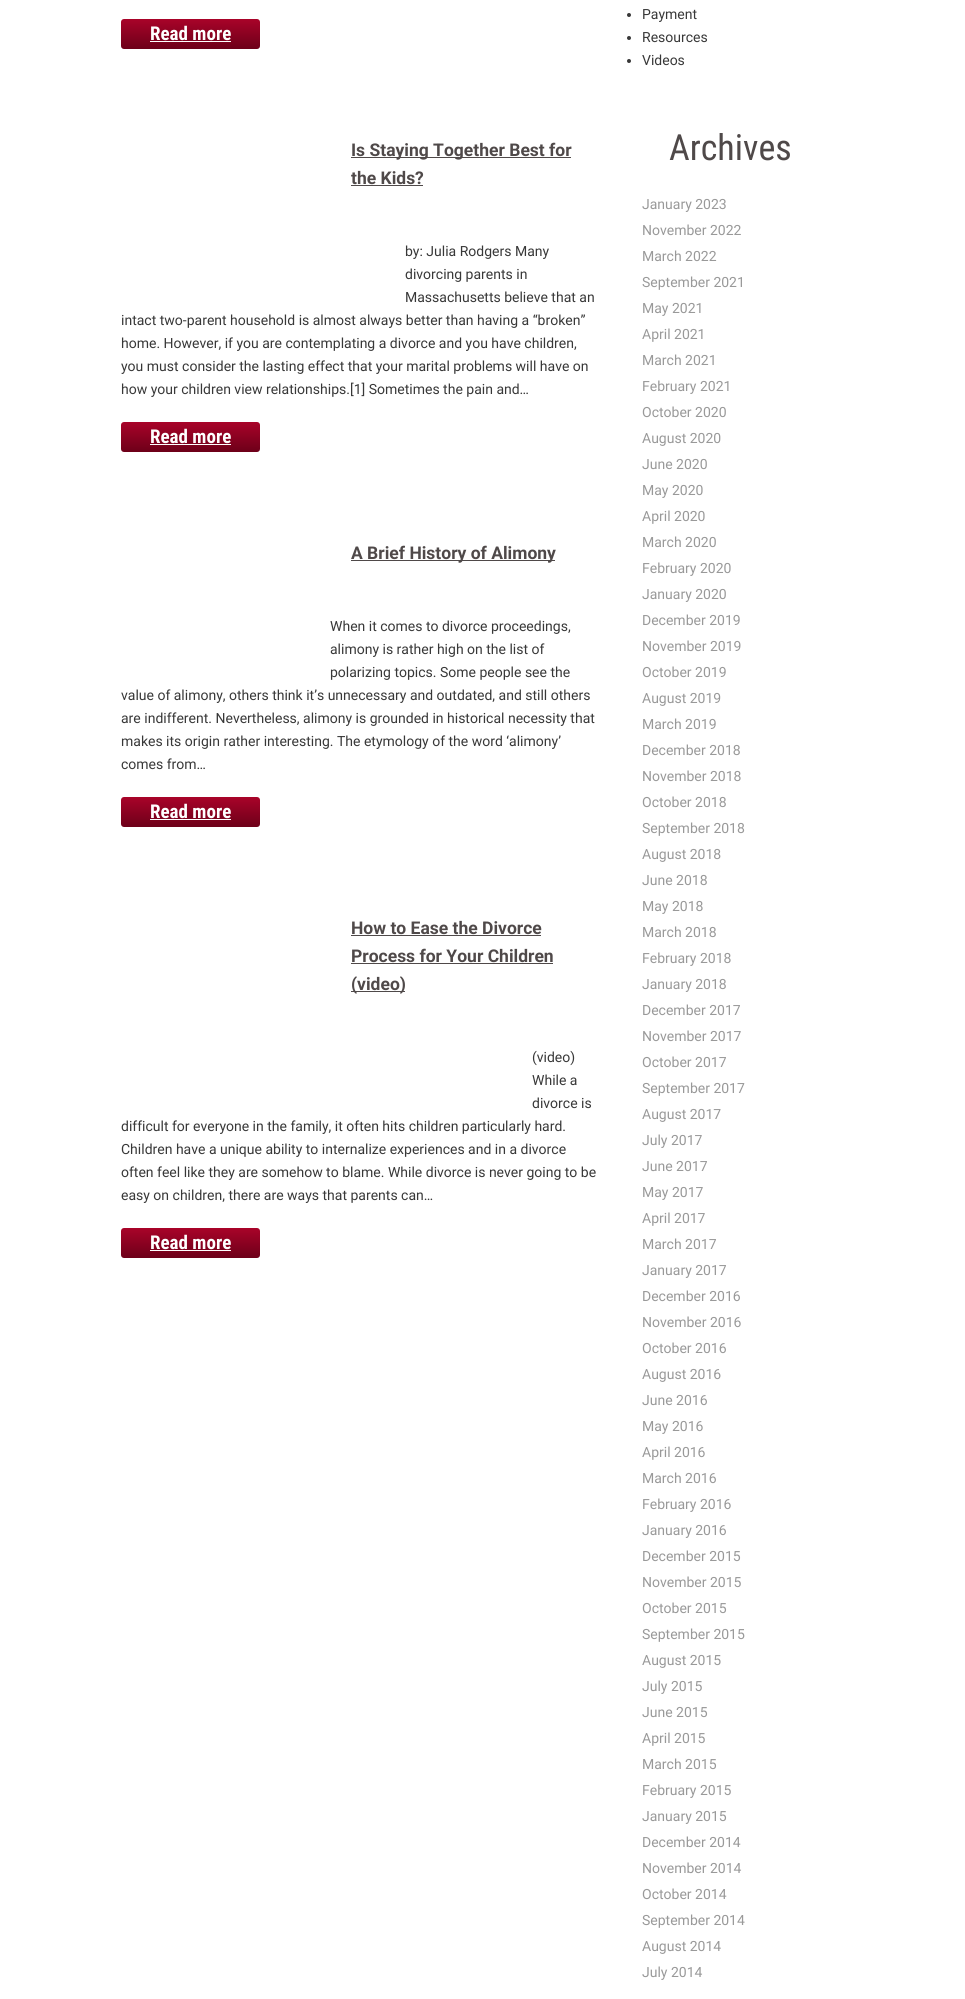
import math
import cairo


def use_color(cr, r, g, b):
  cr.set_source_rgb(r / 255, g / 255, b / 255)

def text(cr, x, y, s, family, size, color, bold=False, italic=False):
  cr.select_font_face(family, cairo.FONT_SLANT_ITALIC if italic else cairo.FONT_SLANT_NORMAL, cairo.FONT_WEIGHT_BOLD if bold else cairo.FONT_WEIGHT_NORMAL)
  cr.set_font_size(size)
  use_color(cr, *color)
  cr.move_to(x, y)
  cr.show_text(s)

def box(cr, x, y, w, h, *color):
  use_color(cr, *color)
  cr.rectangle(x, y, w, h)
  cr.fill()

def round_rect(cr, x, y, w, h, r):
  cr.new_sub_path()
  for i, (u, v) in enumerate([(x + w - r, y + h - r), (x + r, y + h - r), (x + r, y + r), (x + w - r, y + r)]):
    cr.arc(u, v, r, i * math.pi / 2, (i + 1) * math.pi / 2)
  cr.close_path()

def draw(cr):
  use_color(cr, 255, 255, 255)
  cr.paint()
  gradient = cairo.LinearGradient(191, 19, 191, 49)
  gradient.add_color_stop_rgba(0, 0.663, 0.012, 0.161, 1)
  gradient.add_color_stop_rgba(1, 0.427, 0, 0.098, 1)
  cr.set_source(gradient)
  round_rect(cr, 121, 19, 139, 30, 3)
  cr.fill()
  box(cr, 150, 41, 81, 1, 255, 255, 255)
  box(cr, 351, 157, 220, 1, 79, 73, 73)
  box(cr, 351, 185, 72, 1, 79, 73, 73)
  gradient = cairo.LinearGradient(191, 422, 191, 452)
  gradient.add_color_stop_rgba(0, 0.663, 0.012, 0.161, 1)
  gradient.add_color_stop_rgba(1, 0.427, 0, 0.098, 1)
  cr.set_source(gradient)
  round_rect(cr, 121, 422, 139, 30, 3)
  cr.fill()
  box(cr, 150, 444, 81, 1, 255, 255, 255)
  box(cr, 351, 560, 204, 1, 79, 73, 73)
  gradient = cairo.LinearGradient(191, 797, 191, 827)
  gradient.add_color_stop_rgba(0, 0.663, 0.012, 0.161, 1)
  gradient.add_color_stop_rgba(1, 0.427, 0, 0.098, 1)
  cr.set_source(gradient)
  round_rect(cr, 121, 797, 139, 30, 3)
  cr.fill()
  box(cr, 150, 819, 81, 1, 255, 255, 255)
  box(cr, 351, 935, 190, 1, 79, 73, 73)
  box(cr, 351, 963, 202, 1, 79, 73, 73)
  box(cr, 351, 991, 54, 1, 79, 73, 73)
  gradient = cairo.LinearGradient(191, 1228, 191, 1258)
  gradient.add_color_stop_rgba(0, 0.663, 0.012, 0.161, 1)
  gradient.add_color_stop_rgba(1, 0.427, 0, 0.098, 1)
  cr.set_source(gradient)
  round_rect(cr, 121, 1228, 139, 30, 3)
  cr.fill()
  box(cr, 150, 1250, 81, 1, 255, 255, 255)
  use_color(cr, 56, 56, 56)
  cr.arc(629, 15, 2, 0, 2 * math.pi)
  cr.fill()
  cr.arc(629, 38, 2, 0, 2 * math.pi)
  cr.fill()
  cr.arc(629, 61, 2, 0, 2 * math.pi)
  cr.fill()
  text(cr, 150, 40, "Read more", "Roboto Condensed", 19, (255, 255, 255), bold=True)
  text(cr, 351, 156, "Is Staying Together Best for", "Roboto", 17.5, (79, 73, 73), bold=True)
  text(cr, 351, 184, "the Kids?", "Roboto", 17.5, (79, 73, 73), bold=True)
  text(cr, 405, 256, "by: Julia Rodgers Many", "Roboto", 14, (56, 56, 56))
  text(cr, 405, 279, "divorcing parents in", "Roboto", 14, (56, 56, 56))
  text(cr, 405, 302, "Massachusetts believe that an", "Roboto", 14, (56, 56, 56))
  text(cr, 121, 325, "intact two-parent household is almost always better than having a “broken”", "Roboto", 14, (56, 56, 56))
  text(cr, 121, 348, "home. However, if you are contemplating a divorce and you have children,", "Roboto", 14, (56, 56, 56))
  text(cr, 121, 371, "you must consider the lasting effect that your marital problems will have on", "Roboto", 14, (56, 56, 56))
  text(cr, 121, 394, "how your children view relationships.[1] Sometimes the pain and…", "Roboto", 14, (56, 56, 56))
  text(cr, 150, 443, "Read more", "Roboto Condensed", 19, (255, 255, 255), bold=True)
  text(cr, 351, 559, "A Brief History of Alimony", "Roboto", 17.5, (79, 73, 73), bold=True)
  text(cr, 330, 631, "When it comes to divorce proceedings,", "Roboto", 14, (56, 56, 56))
  text(cr, 330, 654, "alimony is rather high on the list of", "Roboto", 14, (56, 56, 56))
  text(cr, 330, 677, "polarizing topics. Some people see the", "Roboto", 14, (56, 56, 56))
  text(cr, 121, 700, "value of alimony, others think it’s unnecessary and outdated, and still others", "Roboto", 14, (56, 56, 56))
  text(cr, 121, 723, "are indifferent. Nevertheless, alimony is grounded in historical necessity that", "Roboto", 14, (56, 56, 56))
  text(cr, 121, 746, "makes its origin rather interesting. The etymology of the word ‘alimony’", "Roboto", 14, (56, 56, 56))
  text(cr, 121, 769, "comes from…", "Roboto", 14, (56, 56, 56))
  text(cr, 150, 818, "Read more", "Roboto Condensed", 19, (255, 255, 255), bold=True)
  text(cr, 351, 934, "How to Ease the Divorce", "Roboto", 17.5, (79, 73, 73), bold=True)
  text(cr, 351, 962, "Process for Your Children", "Roboto", 17.5, (79, 73, 73), bold=True)
  text(cr, 351, 990, "(video)", "Roboto", 17.5, (79, 73, 73), bold=True)
  text(cr, 532, 1062, "(video)", "Roboto", 14, (56, 56, 56))
  text(cr, 532, 1085, "While a", "Roboto", 14, (56, 56, 56))
  text(cr, 532, 1108, "divorce is", "Roboto", 14, (56, 56, 56))
  text(cr, 121, 1131, "difficult for everyone in the family, it often hits children particularly hard.", "Roboto", 14, (56, 56, 56))
  text(cr, 121, 1154, "Children have a unique ability to internalize experiences and in a divorce", "Roboto", 14, (56, 56, 56))
  text(cr, 121, 1177, "often feel like they are somehow to blame. While divorce is never going to be", "Roboto", 14, (56, 56, 56))
  text(cr, 121, 1200, "easy on children, there are ways that parents can…", "Roboto", 14, (56, 56, 56))
  text(cr, 150, 1249, "Read more", "Roboto Condensed", 19, (255, 255, 255), bold=True)
  text(cr, 642, 19, "Payment", "Roboto", 14, (56, 56, 56))
  text(cr, 642, 42, "Resources", "Roboto", 14, (56, 56, 56))
  text(cr, 642, 65, "Videos", "Roboto", 14, (56, 56, 56))
  text(cr, 669, 160, "Archives", "Roboto Condensed", 36, (79, 73, 73))
  text(cr, 642, 209, "January 2023", "Roboto", 14, (153, 153, 153))
  text(cr, 642, 235, "November 2022", "Roboto", 14, (153, 153, 153))
  text(cr, 642, 261, "March 2022", "Roboto", 14, (153, 153, 153))
  text(cr, 642, 287, "September 2021", "Roboto", 14, (153, 153, 153))
  text(cr, 642, 313, "May 2021", "Roboto", 14, (153, 153, 153))
  text(cr, 642, 339, "April 2021", "Roboto", 14, (153, 153, 153))
  text(cr, 642, 365, "March 2021", "Roboto", 14, (153, 153, 153))
  text(cr, 642, 391, "February 2021", "Roboto", 14, (153, 153, 153))
  text(cr, 642, 417, "October 2020", "Roboto", 14, (153, 153, 153))
  text(cr, 642, 443, "August 2020", "Roboto", 14, (153, 153, 153))
  text(cr, 642, 469, "June 2020", "Roboto", 14, (153, 153, 153))
  text(cr, 642, 495, "May 2020", "Roboto", 14, (153, 153, 153))
  text(cr, 642, 521, "April 2020", "Roboto", 14, (153, 153, 153))
  text(cr, 642, 547, "March 2020", "Roboto", 14, (153, 153, 153))
  text(cr, 642, 573, "February 2020", "Roboto", 14, (153, 153, 153))
  text(cr, 642, 599, "January 2020", "Roboto", 14, (153, 153, 153))
  text(cr, 642, 625, "December 2019", "Roboto", 14, (153, 153, 153))
  text(cr, 642, 651, "November 2019", "Roboto", 14, (153, 153, 153))
  text(cr, 642, 677, "October 2019", "Roboto", 14, (153, 153, 153))
  text(cr, 642, 703, "August 2019", "Roboto", 14, (153, 153, 153))
  text(cr, 642, 729, "March 2019", "Roboto", 14, (153, 153, 153))
  text(cr, 642, 755, "December 2018", "Roboto", 14, (153, 153, 153))
  text(cr, 642, 781, "November 2018", "Roboto", 14, (153, 153, 153))
  text(cr, 642, 807, "October 2018", "Roboto", 14, (153, 153, 153))
  text(cr, 642, 833, "September 2018", "Roboto", 14, (153, 153, 153))
  text(cr, 642, 859, "August 2018", "Roboto", 14, (153, 153, 153))
  text(cr, 642, 885, "June 2018", "Roboto", 14, (153, 153, 153))
  text(cr, 642, 911, "May 2018", "Roboto", 14, (153, 153, 153))
  text(cr, 642, 937, "March 2018", "Roboto", 14, (153, 153, 153))
  text(cr, 642, 963, "February 2018", "Roboto", 14, (153, 153, 153))
  text(cr, 642, 989, "January 2018", "Roboto", 14, (153, 153, 153))
  text(cr, 642, 1015, "December 2017", "Roboto", 14, (153, 153, 153))
  text(cr, 642, 1041, "November 2017", "Roboto", 14, (153, 153, 153))
  text(cr, 642, 1067, "October 2017", "Roboto", 14, (153, 153, 153))
  text(cr, 642, 1093, "September 2017", "Roboto", 14, (153, 153, 153))
  text(cr, 642, 1119, "August 2017", "Roboto", 14, (153, 153, 153))
  text(cr, 642, 1145, "July 2017", "Roboto", 14, (153, 153, 153))
  text(cr, 642, 1171, "June 2017", "Roboto", 14, (153, 153, 153))
  text(cr, 642, 1197, "May 2017", "Roboto", 14, (153, 153, 153))
  text(cr, 642, 1223, "April 2017", "Roboto", 14, (153, 153, 153))
  text(cr, 642, 1249, "March 2017", "Roboto", 14, (153, 153, 153))
  text(cr, 642, 1275, "January 2017", "Roboto", 14, (153, 153, 153))
  text(cr, 642, 1301, "December 2016", "Roboto", 14, (153, 153, 153))
  text(cr, 642, 1327, "November 2016", "Roboto", 14, (153, 153, 153))
  text(cr, 642, 1353, "October 2016", "Roboto", 14, (153, 153, 153))
  text(cr, 642, 1379, "August 2016", "Roboto", 14, (153, 153, 153))
  text(cr, 642, 1405, "June 2016", "Roboto", 14, (153, 153, 153))
  text(cr, 642, 1431, "May 2016", "Roboto", 14, (153, 153, 153))
  text(cr, 642, 1457, "April 2016", "Roboto", 14, (153, 153, 153))
  text(cr, 642, 1483, "March 2016", "Roboto", 14, (153, 153, 153))
  text(cr, 642, 1509, "February 2016", "Roboto", 14, (153, 153, 153))
  text(cr, 642, 1535, "January 2016", "Roboto", 14, (153, 153, 153))
  text(cr, 642, 1561, "December 2015", "Roboto", 14, (153, 153, 153))
  text(cr, 642, 1587, "November 2015", "Roboto", 14, (153, 153, 153))
  text(cr, 642, 1613, "October 2015", "Roboto", 14, (153, 153, 153))
  text(cr, 642, 1639, "September 2015", "Roboto", 14, (153, 153, 153))
  text(cr, 642, 1665, "August 2015", "Roboto", 14, (153, 153, 153))
  text(cr, 642, 1691, "July 2015", "Roboto", 14, (153, 153, 153))
  text(cr, 642, 1717, "June 2015", "Roboto", 14, (153, 153, 153))
  text(cr, 642, 1743, "April 2015", "Roboto", 14, (153, 153, 153))
  text(cr, 642, 1769, "March 2015", "Roboto", 14, (153, 153, 153))
  text(cr, 642, 1795, "February 2015", "Roboto", 14, (153, 153, 153))
  text(cr, 642, 1821, "January 2015", "Roboto", 14, (153, 153, 153))
  text(cr, 642, 1847, "December 2014", "Roboto", 14, (153, 153, 153))
  text(cr, 642, 1873, "November 2014", "Roboto", 14, (153, 153, 153))
  text(cr, 642, 1899, "October 2014", "Roboto", 14, (153, 153, 153))
  text(cr, 642, 1925, "September 2014", "Roboto", 14, (153, 153, 153))
  text(cr, 642, 1951, "August 2014", "Roboto", 14, (153, 153, 153))
  text(cr, 642, 1977, "July 2014", "Roboto", 14, (153, 153, 153))


surface = cairo.ImageSurface(cairo.FORMAT_RGB24, 965, 1999)
cr = cairo.Context(surface)
options = cairo.FontOptions()
options.set_hint_metrics(cairo.HINT_METRICS_OFF)
options.set_hint_style(cairo.HINT_STYLE_NONE)
cr.set_font_options(options)
cr.set_miter_limit(4)
draw(cr)
surface.write_to_png("out.png")
